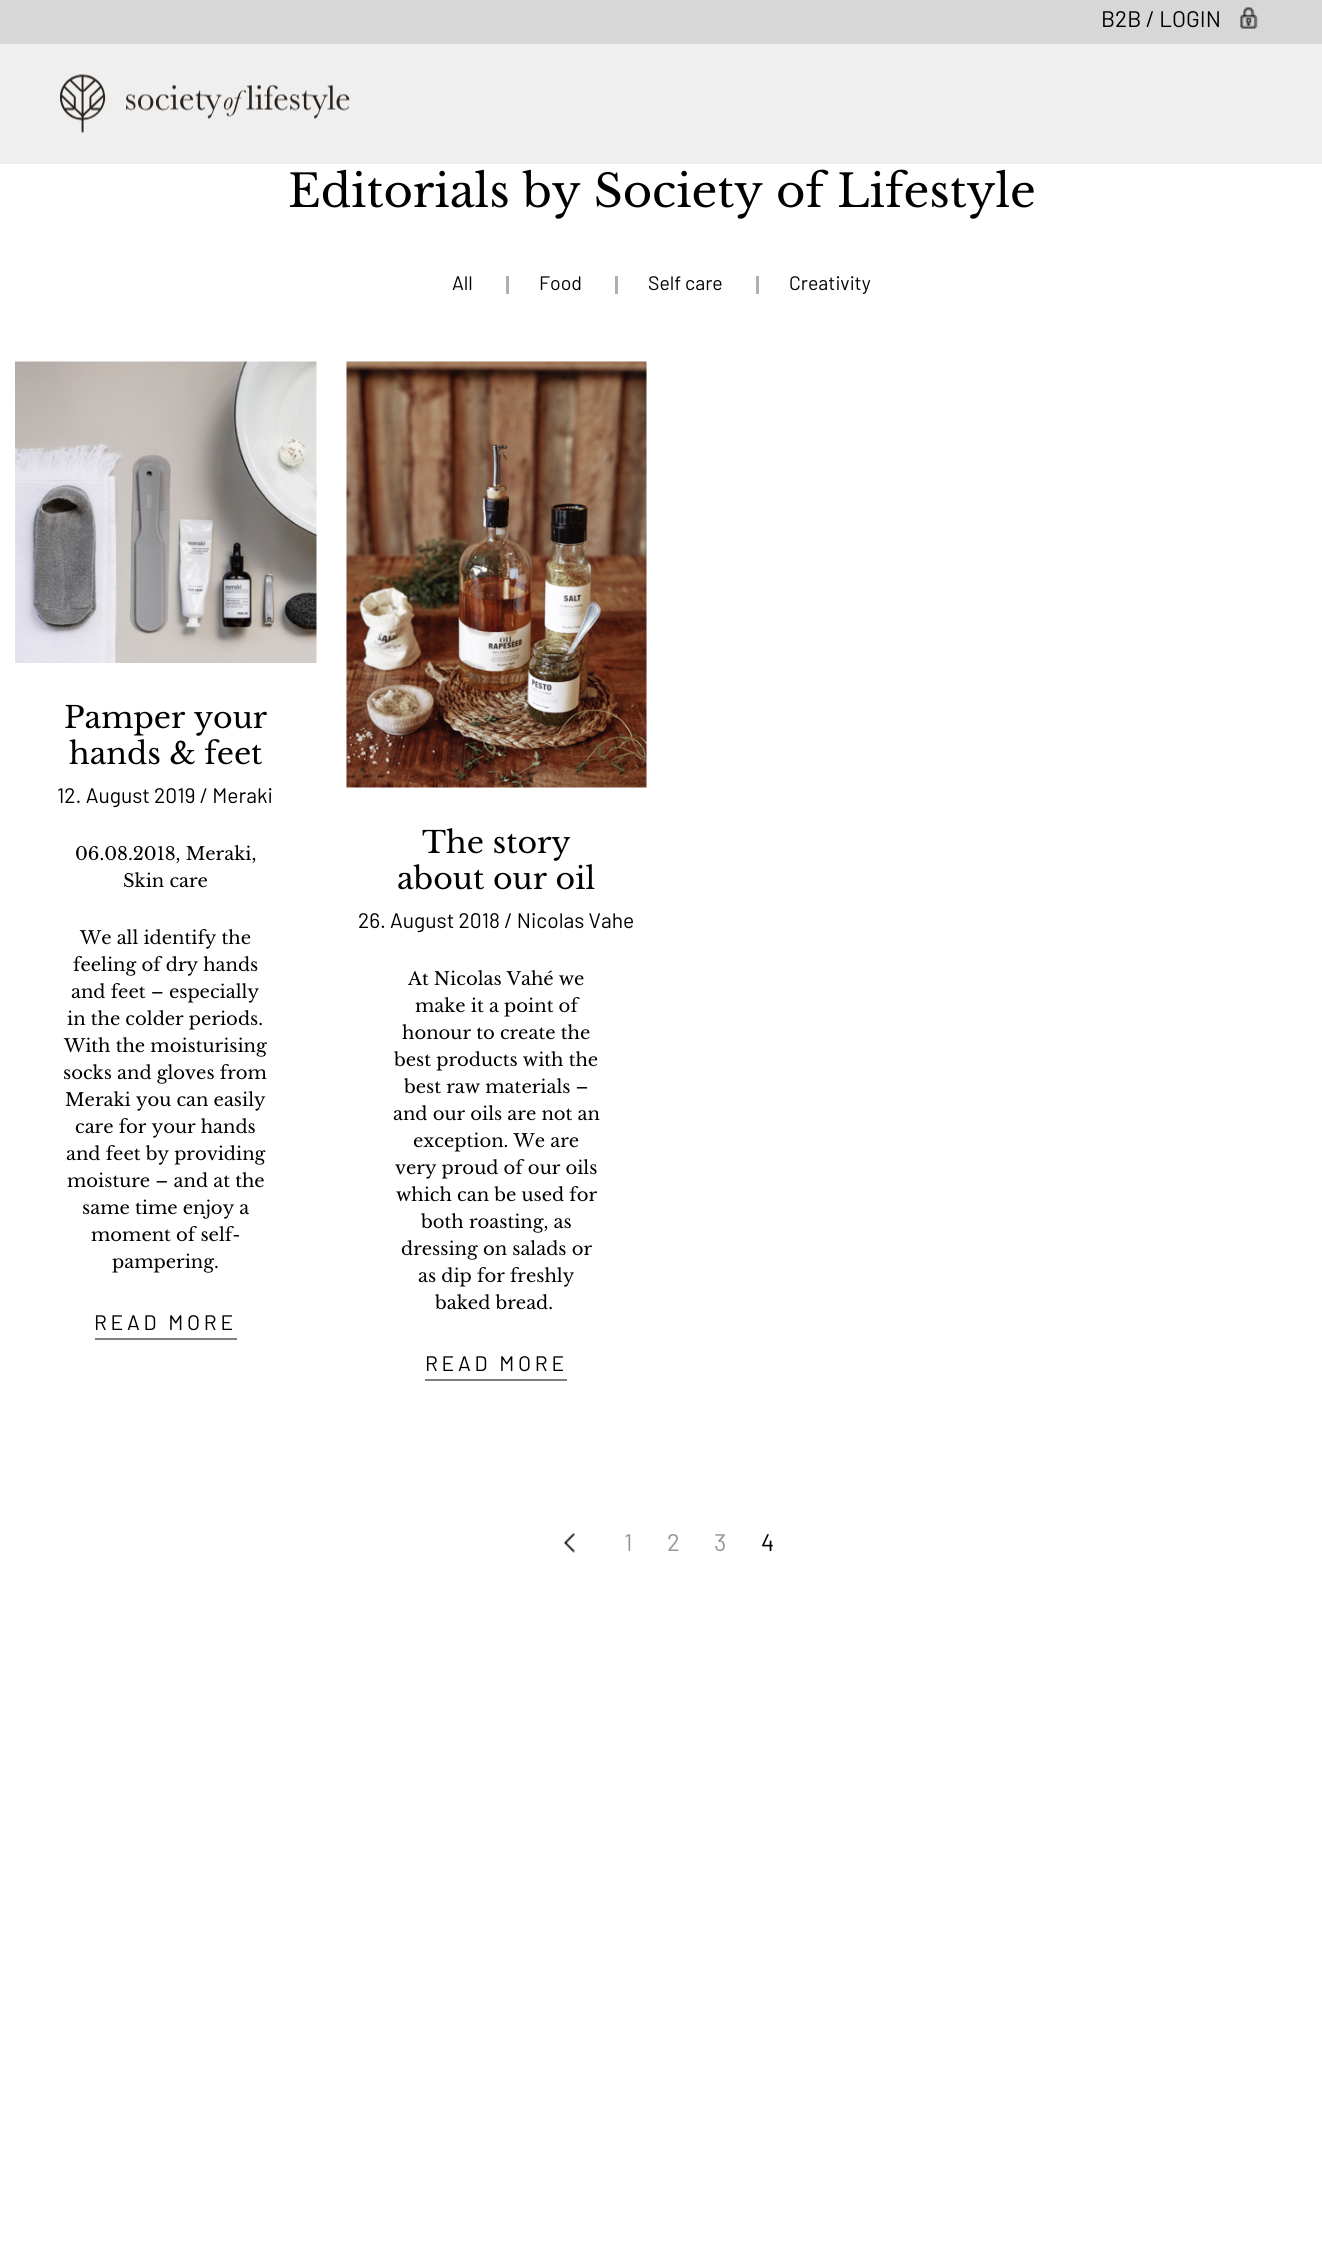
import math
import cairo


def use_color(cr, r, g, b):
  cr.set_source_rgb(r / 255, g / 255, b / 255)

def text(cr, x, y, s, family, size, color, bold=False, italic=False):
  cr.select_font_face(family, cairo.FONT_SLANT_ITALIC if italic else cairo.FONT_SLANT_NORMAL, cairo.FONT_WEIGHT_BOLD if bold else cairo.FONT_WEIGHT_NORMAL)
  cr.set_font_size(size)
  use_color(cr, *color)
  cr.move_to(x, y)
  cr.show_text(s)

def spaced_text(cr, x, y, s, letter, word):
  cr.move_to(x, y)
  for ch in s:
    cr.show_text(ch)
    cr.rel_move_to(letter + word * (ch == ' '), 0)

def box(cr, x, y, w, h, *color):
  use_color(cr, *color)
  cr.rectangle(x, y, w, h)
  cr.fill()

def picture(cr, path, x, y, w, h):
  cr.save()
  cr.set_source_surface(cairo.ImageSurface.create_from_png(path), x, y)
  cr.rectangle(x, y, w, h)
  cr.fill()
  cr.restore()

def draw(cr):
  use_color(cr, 255, 255, 255)
  cr.paint()
  box(cr, 0, 0, 1322, 44, 215, 215, 215)
  picture(cr, "img_01.png", 1240, 7, 18, 22)
  box(cr, 0, 44, 1322, 120, 239, 239, 239)
  picture(cr, "img_02.png", 60, 74, 290, 59)
  box(cr, 506, 276, 3, 18, 175, 175, 175)
  box(cr, 615, 276, 3, 18, 175, 175, 175)
  box(cr, 756, 276, 3, 18, 175, 175, 175)
  picture(cr, "img_03.png", 15, 361, 302, 302)
  box(cr, 95, 1338, 142, 2, 127, 127, 127)
  picture(cr, "img_04.png", 346, 361, 301, 427)
  box(cr, 425, 1379, 142, 2, 127, 127, 127)
  picture(cr, "img_05.png", 563, 1533, 12, 20)
  text(cr, 1101, 27, "B2B / LOGIN", "Barlow", 22.5, (0, 0, 0))
  text(cr, 288, 207, "Editorials by Society of Lifestyle", "Libre Baskerville", 45, (0, 0, 0))
  text(cr, 452, 290, "All", "Barlow", 19.5, (0, 0, 0))
  text(cr, 539, 290, "Food", "Barlow", 19.5, (0, 0, 0))
  text(cr, 648, 290, "Self care", "Barlow", 19.5, (0, 0, 0))
  text(cr, 789, 290, "Creativity", "Barlow", 19.5, (0, 0, 0))
  text(cr, 64, 728, "Pamper your", "Libre Baskerville", 30, (0, 0, 0))
  text(cr, 69, 764, "hands & feet", "Libre Baskerville", 30, (0, 0, 0))
  text(cr, 57, 803, "12. August 2019 / Meraki", "Barlow", 21, (0, 0, 0))
  text(cr, 75, 860, "06.08.2018, Meraki,", "Libre Baskerville", 18, (0, 0, 0))
  text(cr, 123, 887, "Skin care", "Libre Baskerville", 18, (0, 0, 0))
  text(cr, 80, 944, "We all identify the", "Libre Baskerville", 18, (0, 0, 0))
  text(cr, 73, 971, "feeling of dry hands", "Libre Baskerville", 18, (0, 0, 0))
  text(cr, 71, 998, "and feet – especially", "Libre Baskerville", 18, (0, 0, 0))
  text(cr, 67, 1025, "in the colder periods.", "Libre Baskerville", 18, (0, 0, 0))
  text(cr, 64, 1052, "With the moisturising", "Libre Baskerville", 18, (0, 0, 0))
  text(cr, 63, 1079, "socks and gloves from", "Libre Baskerville", 18, (0, 0, 0))
  text(cr, 65, 1106, "Meraki you can easily", "Libre Baskerville", 18, (0, 0, 0))
  text(cr, 75, 1133, "care for your hands", "Libre Baskerville", 18, (0, 0, 0))
  text(cr, 66, 1160, "and feet by providing", "Libre Baskerville", 18, (0, 0, 0))
  text(cr, 67, 1187, "moisture – and at the", "Libre Baskerville", 18, (0, 0, 0))
  text(cr, 82, 1214, "same time enjoy a", "Libre Baskerville", 18, (0, 0, 0))
  text(cr, 91, 1241, "moment of self-", "Libre Baskerville", 18, (0, 0, 0))
  text(cr, 112, 1268, "pampering.", "Libre Baskerville", 18, (0, 0, 0))
  cr.select_font_face("Barlow")
  cr.set_font_size(21)
  spaced_text(cr, 94, 1330, "READ MORE", 3.75, 0)
  text(cr, 422, 853, "The story", "Libre Baskerville", 30, (0, 0, 0))
  text(cr, 397, 889, "about our oil", "Libre Baskerville", 30, (0, 0, 0))
  text(cr, 358, 928, "26. August 2018 / Nicolas Vahe", "Barlow", 21, (0, 0, 0))
  text(cr, 408, 985, "At Nicolas Vahé we", "Libre Baskerville", 18, (0, 0, 0))
  text(cr, 415, 1012, "make it a point of", "Libre Baskerville", 18, (0, 0, 0))
  text(cr, 402, 1039, "honour to create the", "Libre Baskerville", 18, (0, 0, 0))
  text(cr, 394, 1066, "best products with the", "Libre Baskerville", 18, (0, 0, 0))
  text(cr, 404, 1093, "best raw materials –", "Libre Baskerville", 18, (0, 0, 0))
  text(cr, 393, 1120, "and our oils are not an", "Libre Baskerville", 18, (0, 0, 0))
  text(cr, 413, 1147, "exception. We are", "Libre Baskerville", 18, (0, 0, 0))
  text(cr, 395, 1174, "very proud of our oils", "Libre Baskerville", 18, (0, 0, 0))
  text(cr, 396, 1201, "which can be used for", "Libre Baskerville", 18, (0, 0, 0))
  text(cr, 421, 1228, "both roasting, as", "Libre Baskerville", 18, (0, 0, 0))
  text(cr, 401, 1255, "dressing on salads or", "Libre Baskerville", 18, (0, 0, 0))
  text(cr, 418, 1282, "as dip for freshly", "Libre Baskerville", 18, (0, 0, 0))
  text(cr, 435, 1309, "baked bread.", "Libre Baskerville", 18, (0, 0, 0))
  cr.select_font_face("Barlow")
  cr.set_font_size(21)
  spaced_text(cr, 425, 1371, "READ MORE", 3.75, 0)
  text(cr, 624, 1551, "1", "Barlow", 24, (151, 151, 151))
  text(cr, 667, 1551, "2", "Barlow", 24, (151, 151, 151))
  text(cr, 714, 1551, "3", "Barlow", 24, (151, 151, 151))
  text(cr, 761, 1551, "4", "Barlow", 24, (0, 0, 0))


surface = cairo.ImageSurface(cairo.FORMAT_RGB24, 1322, 2257)
cr = cairo.Context(surface)
options = cairo.FontOptions()
options.set_hint_metrics(cairo.HINT_METRICS_OFF)
options.set_hint_style(cairo.HINT_STYLE_NONE)
cr.set_font_options(options)
cr.set_miter_limit(4)
draw(cr)
surface.write_to_png("out.png")
